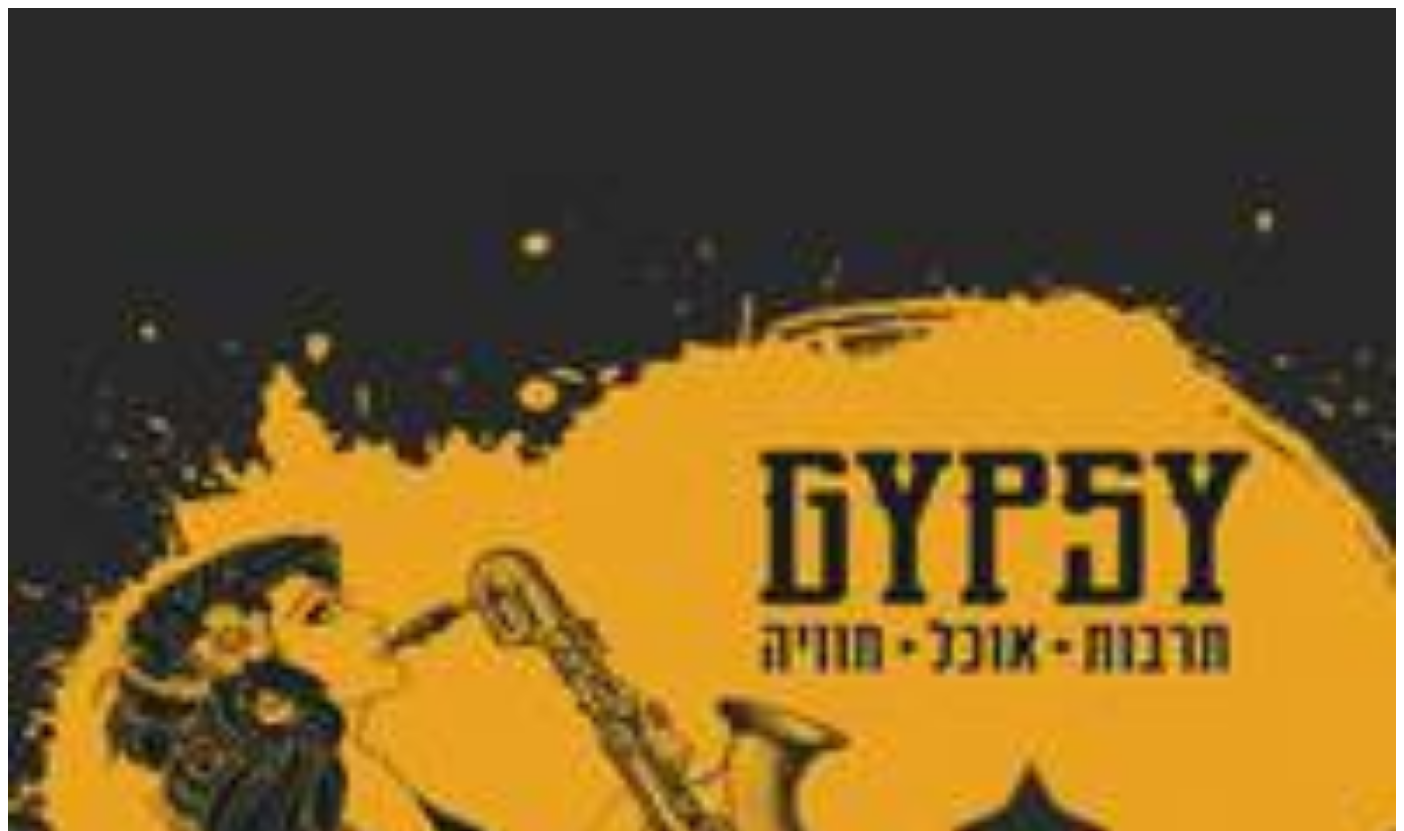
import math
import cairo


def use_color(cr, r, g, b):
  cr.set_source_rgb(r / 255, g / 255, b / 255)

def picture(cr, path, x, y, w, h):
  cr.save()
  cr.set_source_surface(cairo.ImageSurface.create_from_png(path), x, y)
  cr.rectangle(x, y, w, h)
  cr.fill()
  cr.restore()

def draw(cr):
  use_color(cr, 255, 255, 255)
  cr.paint()
  picture(cr, "img_01.png", 8, 8, 1388, 823)


surface = cairo.ImageSurface(cairo.FORMAT_RGB24, 1404, 831)
cr = cairo.Context(surface)
options = cairo.FontOptions()
options.set_hint_metrics(cairo.HINT_METRICS_OFF)
options.set_hint_style(cairo.HINT_STYLE_NONE)
cr.set_font_options(options)
cr.set_miter_limit(4)
draw(cr)
surface.write_to_png("out.png")
